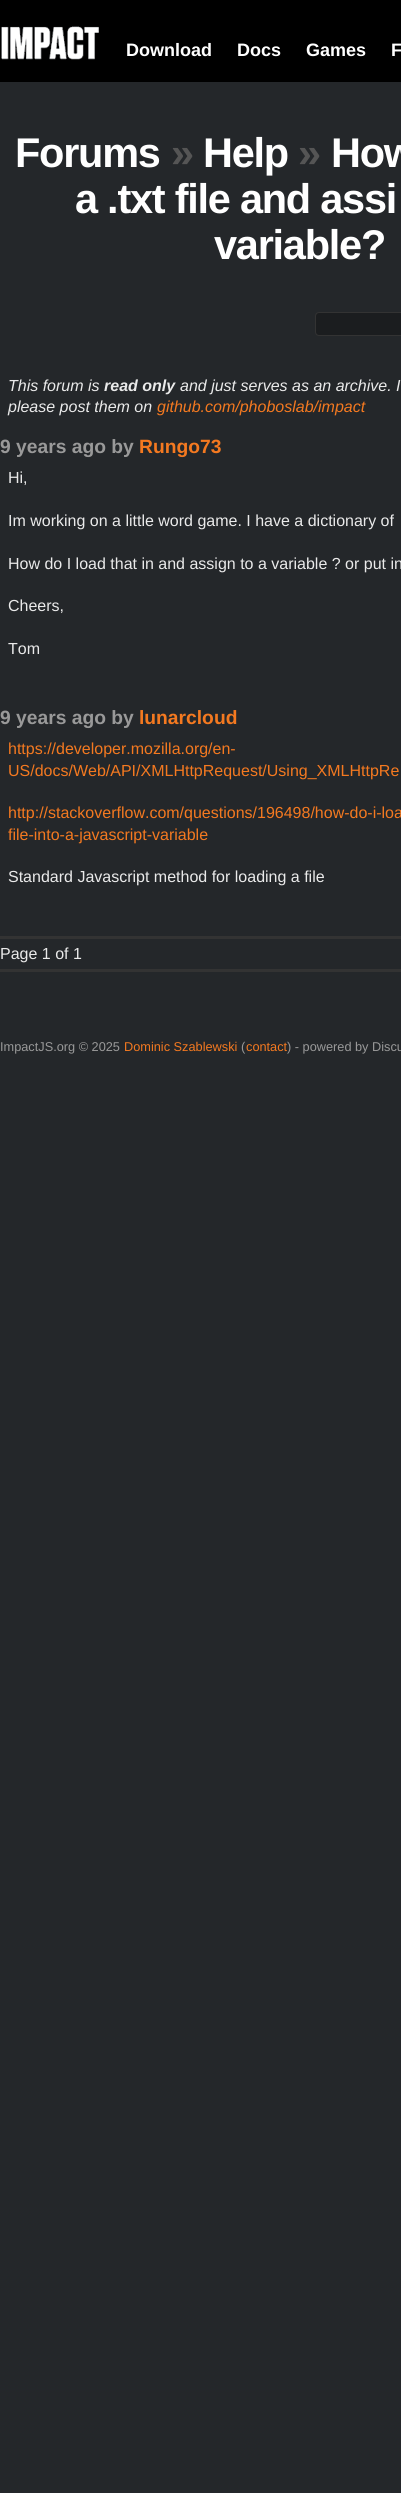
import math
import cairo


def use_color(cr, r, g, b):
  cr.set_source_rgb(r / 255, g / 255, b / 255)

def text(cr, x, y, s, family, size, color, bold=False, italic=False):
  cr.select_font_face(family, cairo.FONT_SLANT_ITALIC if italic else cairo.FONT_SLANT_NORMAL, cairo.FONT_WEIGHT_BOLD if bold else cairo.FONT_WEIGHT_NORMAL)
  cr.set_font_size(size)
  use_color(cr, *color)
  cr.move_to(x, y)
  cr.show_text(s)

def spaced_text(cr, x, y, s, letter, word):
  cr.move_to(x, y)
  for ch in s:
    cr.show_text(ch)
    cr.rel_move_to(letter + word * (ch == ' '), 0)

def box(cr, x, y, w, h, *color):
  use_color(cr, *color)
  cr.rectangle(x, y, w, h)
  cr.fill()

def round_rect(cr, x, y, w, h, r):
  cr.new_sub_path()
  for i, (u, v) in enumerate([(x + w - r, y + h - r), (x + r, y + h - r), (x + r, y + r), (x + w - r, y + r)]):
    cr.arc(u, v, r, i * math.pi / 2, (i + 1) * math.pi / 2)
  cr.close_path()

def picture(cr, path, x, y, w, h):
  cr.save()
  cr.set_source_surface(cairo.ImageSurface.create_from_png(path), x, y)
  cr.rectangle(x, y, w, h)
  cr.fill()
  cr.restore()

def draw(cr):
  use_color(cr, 36, 39, 42)
  cr.paint()
  box(cr, 0, 0, 401, 82, 0, 0, 0)
  picture(cr, "img_01.png", 1, 26, 98, 34)
  use_color(cr, 27, 29, 31)
  round_rect(cr, 315.5, 312.5, 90, 23, 3.5)
  cr.fill_preserve()
  use_color(cr, 51, 51, 51)
  cr.set_line_width(1)
  cr.stroke()
  box(cr, 0, 936, 401, 3, 51, 51, 51)
  box(cr, 0, 969, 401, 3, 51, 51, 51)
  text(cr, 126, 56, "Download", "Liberation Sans", 18, (255, 255, 255), bold=True)
  text(cr, 237, 56, "Docs", "Liberation Sans", 18, (255, 255, 255), bold=True)
  text(cr, 306, 56, "Games", "Liberation Sans", 18, (255, 255, 255), bold=True)
  text(cr, 391, 56, "F", "Liberation Sans", 18, (255, 255, 255), bold=True)
  cr.set_font_size(41.5)
  spaced_text(cr, 15, 167, "Forums", -1.25, 0)
  use_color(cr, 85, 85, 85)
  spaced_text(cr, 171, 167, "»", -1.25, 0)
  use_color(cr, 255, 255, 255)
  spaced_text(cr, 203, 167, "Help", -1.25, 0)
  use_color(cr, 85, 85, 85)
  spaced_text(cr, 298, 167, "»", -1.25, 0)
  use_color(cr, 255, 255, 255)
  spaced_text(cr, 331, 167, "How", -1.25, 0)
  spaced_text(cr, 75, 213, "a .txt file and assi", -1.25, 0)
  spaced_text(cr, 214, 259, "variable?", -1.25, 0)
  text(cr, 8, 391, "This forum is", "Liberation Sans", 16, (234, 234, 234), italic=True)
  text(cr, 104, 391, "read only", "Liberation Sans", 16, (234, 234, 234), bold=True, italic=True)
  text(cr, 180, 391, "and just serves as an archive. I", "Liberation Sans", 16, (234, 234, 234), italic=True)
  text(cr, 8, 412, "please post them on", "Liberation Sans", 16, (234, 234, 234), italic=True)
  text(cr, 157, 412, "github.com/phoboslab/impact", "Liberation Sans", 16, (244, 121, 32), italic=True)
  text(cr, 0, 453, "9 years ago by", "Liberation Sans", 19.25, (153, 153, 153), bold=True)
  text(cr, 139, 453, "Rungo73", "Liberation Sans", 19.25, (244, 121, 32), bold=True)
  text(cr, 8, 483, "Hi,", "Liberation Sans", 16, (234, 234, 234))
  text(cr, 8, 526, "Im working on a little word game. I have a dictionary of", "Liberation Sans", 16, (234, 234, 234))
  text(cr, 8, 569, "How do I load that in and assign to a variable ? or put in", "Liberation Sans", 16, (234, 234, 234))
  text(cr, 8, 611, "Cheers,", "Liberation Sans", 16, (234, 234, 234))
  text(cr, 8, 654, "Tom", "Liberation Sans", 16, (234, 234, 234))
  text(cr, 0, 724, "9 years ago by", "Liberation Sans", 19.25, (153, 153, 153), bold=True)
  text(cr, 139, 724, "lunarcloud", "Liberation Sans", 19.25, (244, 121, 32), bold=True)
  text(cr, 8, 754, "https://developer.mozilla.org/en-", "Liberation Sans", 16, (244, 121, 32))
  text(cr, 8, 776, "US/docs/Web/API/XMLHttpRequest/Using_XMLHttpRe", "Liberation Sans", 16, (244, 121, 32))
  text(cr, 8, 818, "http://stackoverflow.com/questions/196498/how-do-i-loa", "Liberation Sans", 16, (244, 121, 32))
  text(cr, 8, 840, "file-into-a-javascript-variable", "Liberation Sans", 16, (244, 121, 32))
  text(cr, 8, 882, "Standard Javascript method for loading a file", "Liberation Sans", 16, (234, 234, 234))
  text(cr, 0, 959, "Page 1 of 1", "Liberation Sans", 16, (234, 234, 234))
  text(cr, 0, 1051, "ImpactJS.org © 2025", "Liberation Sans", 12.75, (153, 153, 153))
  text(cr, 124, 1051, "Dominic Szablewski", "Liberation Sans", 12.75, (244, 121, 32))
  text(cr, 241, 1051, "(", "Liberation Sans", 12.75, (153, 153, 153))
  text(cr, 246, 1051, "contact", "Liberation Sans", 12.75, (244, 121, 32))
  text(cr, 287, 1051, ") - powered by Discu", "Liberation Sans", 12.75, (153, 153, 153))


surface = cairo.ImageSurface(cairo.FORMAT_RGB24, 401, 2493)
cr = cairo.Context(surface)
options = cairo.FontOptions()
options.set_hint_metrics(cairo.HINT_METRICS_OFF)
options.set_hint_style(cairo.HINT_STYLE_NONE)
cr.set_font_options(options)
cr.set_miter_limit(4)
draw(cr)
surface.write_to_png("out.png")
